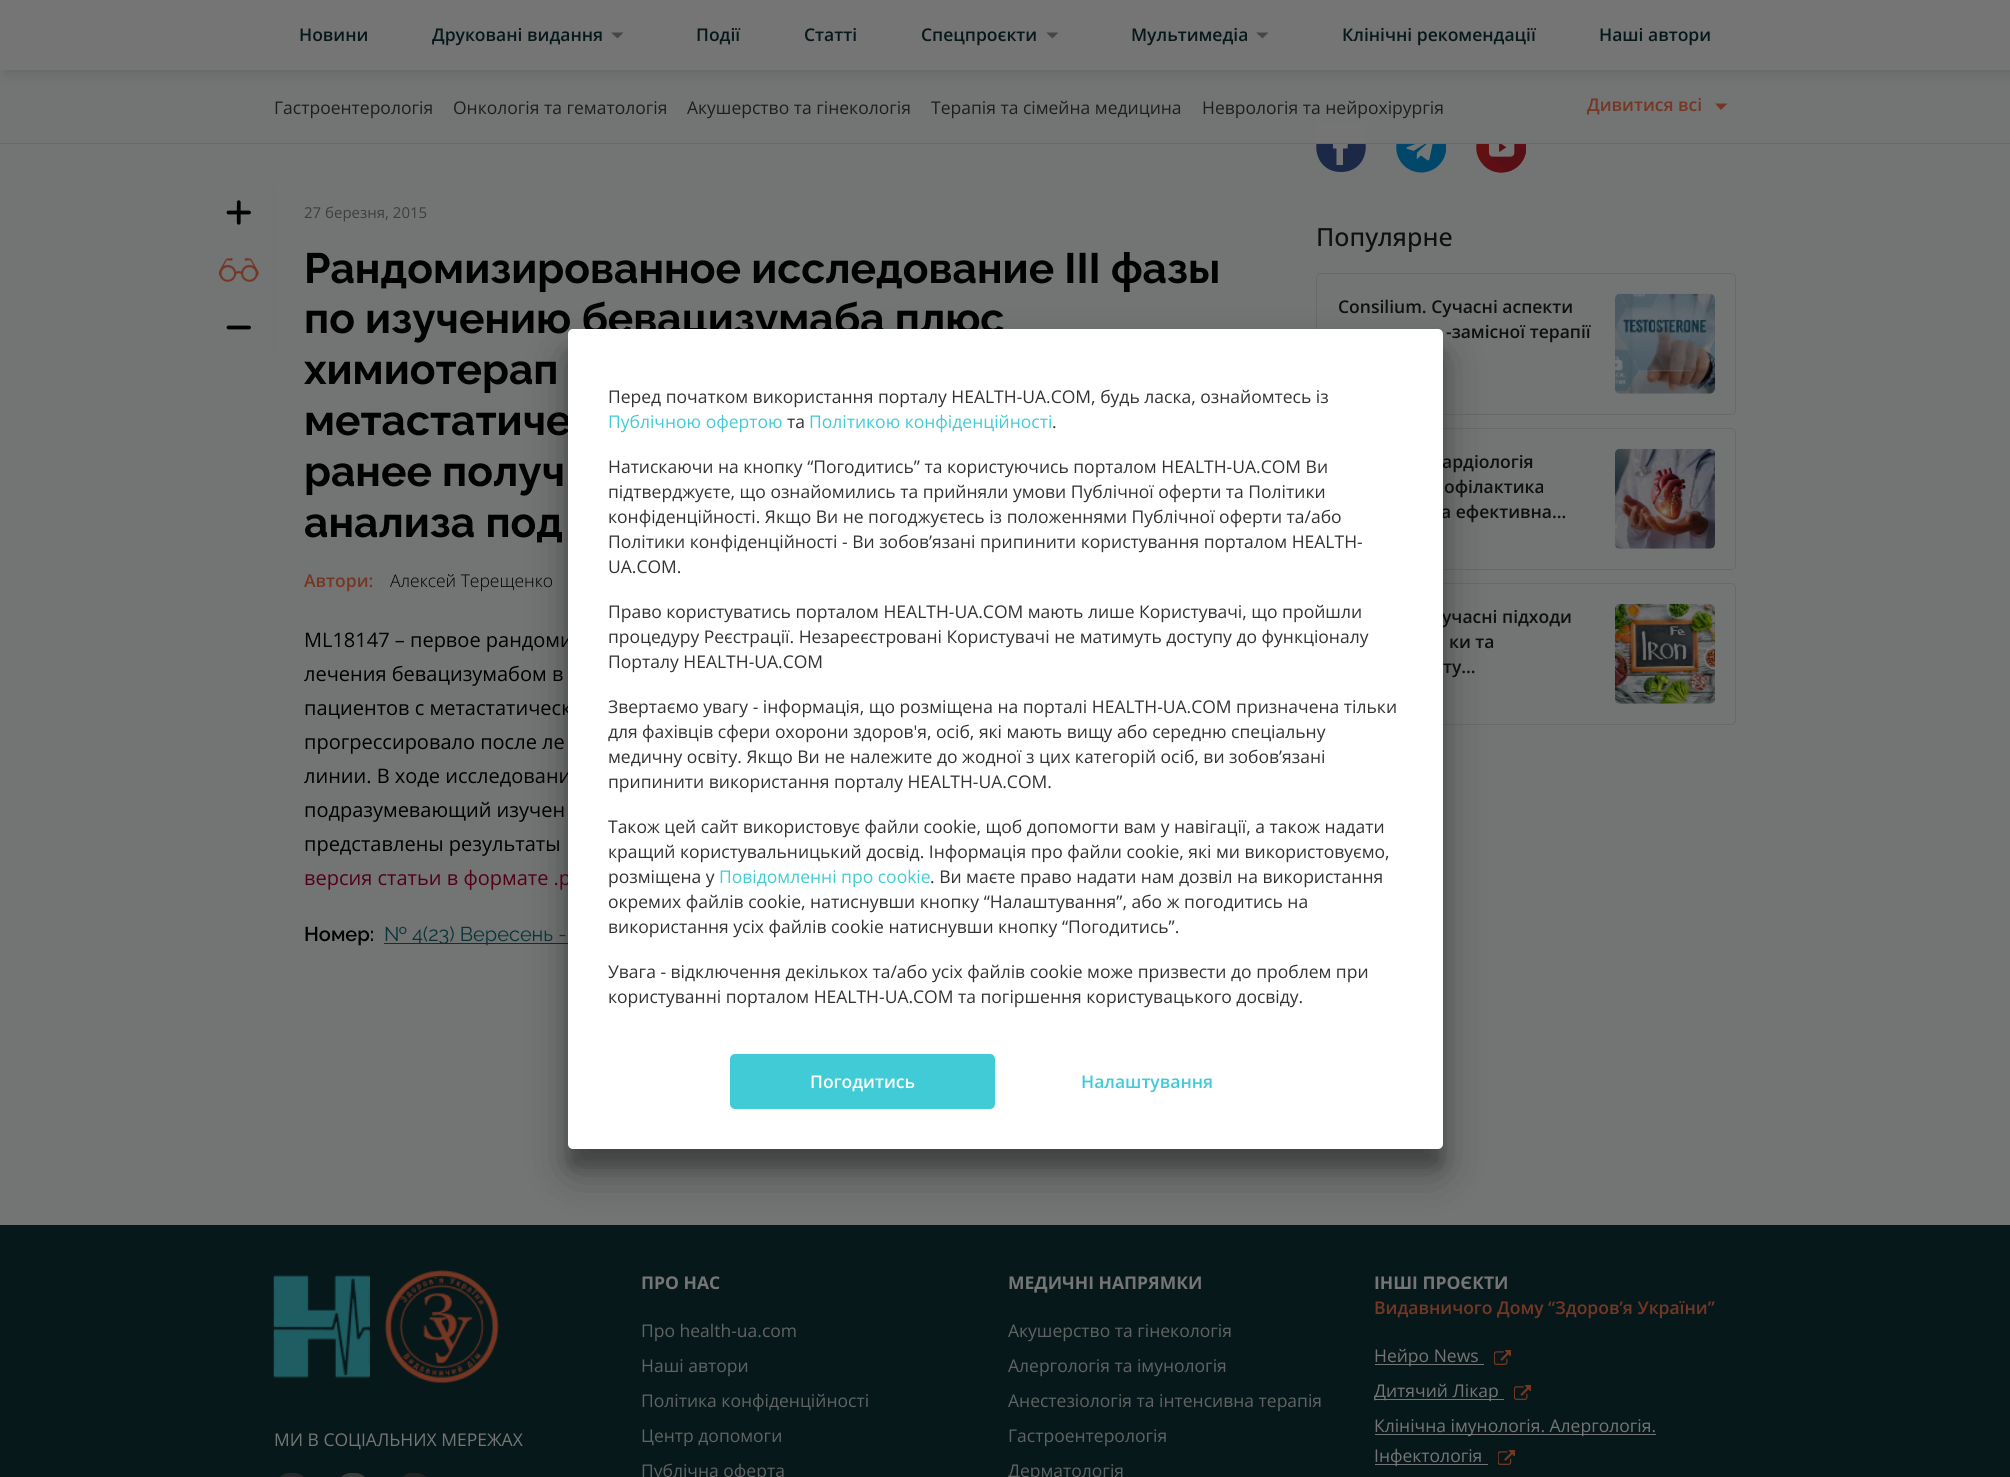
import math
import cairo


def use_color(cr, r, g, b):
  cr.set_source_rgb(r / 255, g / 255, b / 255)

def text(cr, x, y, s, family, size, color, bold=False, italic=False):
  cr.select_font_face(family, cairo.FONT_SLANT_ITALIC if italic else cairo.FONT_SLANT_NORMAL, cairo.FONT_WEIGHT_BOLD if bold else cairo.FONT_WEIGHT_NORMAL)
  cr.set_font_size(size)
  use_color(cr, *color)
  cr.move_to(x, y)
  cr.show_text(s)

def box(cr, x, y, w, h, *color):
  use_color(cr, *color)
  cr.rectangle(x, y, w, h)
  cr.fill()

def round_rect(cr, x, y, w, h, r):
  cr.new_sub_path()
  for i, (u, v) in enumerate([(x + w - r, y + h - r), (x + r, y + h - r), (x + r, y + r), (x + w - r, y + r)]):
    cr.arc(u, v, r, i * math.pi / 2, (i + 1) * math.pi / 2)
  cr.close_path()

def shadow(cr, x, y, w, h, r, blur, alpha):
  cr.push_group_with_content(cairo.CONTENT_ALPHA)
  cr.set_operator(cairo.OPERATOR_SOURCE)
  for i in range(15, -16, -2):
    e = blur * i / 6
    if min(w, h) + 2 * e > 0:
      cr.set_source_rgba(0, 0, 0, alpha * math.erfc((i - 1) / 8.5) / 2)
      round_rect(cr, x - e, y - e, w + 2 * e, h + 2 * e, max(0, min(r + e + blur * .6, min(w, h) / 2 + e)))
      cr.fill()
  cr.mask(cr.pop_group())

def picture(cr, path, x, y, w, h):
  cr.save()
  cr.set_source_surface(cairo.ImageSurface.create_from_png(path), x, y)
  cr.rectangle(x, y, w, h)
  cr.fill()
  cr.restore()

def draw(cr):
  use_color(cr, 115, 116, 116)
  cr.paint()
  use_color(cr, 0, 0, 0)
  shadow(cr, 5, 5, 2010, 70, 0, 6, 0.1)
  box(cr, 0, 0, 2010, 70, 117, 117, 117)
  use_color(cr, 70, 70, 70)
  cr.new_path()
  cr.move_to(611, 32.5)
  cr.line_to(617.5, 38.5)
  cr.line_to(623.5, 32.5)
  cr.close_path()
  cr.fill()
  cr.new_path()
  cr.move_to(1046, 32.5)
  cr.line_to(1052.5, 38.5)
  cr.line_to(1058.5, 32.5)
  cr.close_path()
  cr.fill()
  cr.new_path()
  cr.move_to(1256, 32.5)
  cr.line_to(1262.5, 38.5)
  cr.line_to(1268.5, 32.5)
  cr.close_path()
  cr.fill()
  use_color(cr, 27, 41, 70)
  cr.new_path()
  cr.move_to(1341, 172)
  cr.curve_to(1374, 172, 1374, 122, 1341, 122)
  cr.curve_to(1308, 122, 1308, 172, 1341, 172)
  cr.close_path()
  cr.fill()
  use_color(cr, 117, 117, 117)
  cr.new_path()
  cr.move_to(1347.5, 148.5)
  cr.line_to(1343, 148.5)
  cr.line_to(1343, 165)
  cr.line_to(1336.5, 165)
  cr.line_to(1336.5, 148.5)
  cr.line_to(1333, 148.5)
  cr.line_to(1333, 142.5)
  cr.line_to(1336.5, 142.5)
  cr.curve_to(1336.5, 132.5, 1338.5, 132, 1348, 132)
  cr.line_to(1348, 138)
  cr.curve_to(1343, 138, 1343, 137.5, 1343, 142.5)
  cr.line_to(1348, 142.5)
  cr.close_path()
  cr.fill()
  box(cr, 1316, 122, 50, 21, 117, 117, 117)
  box(cr, 0, 143, 2010, 1, 105, 105, 105)
  use_color(cr, 117, 55, 35)
  cr.new_path()
  cr.move_to(1715, 103.5)
  cr.line_to(1721, 110)
  cr.line_to(1727.5, 103.5)
  cr.close_path()
  cr.fill()
  box(cr, 273, 185, 1, 170, 113, 113, 113)
  picture(cr, "img_01.png", 226, 200, 25, 25)
  picture(cr, "img_02.png", 219, 258, 40, 24)
  picture(cr, "img_03.png", 226, 325, 25, 5)
  box(cr, 384, 943, 184, 1, 8, 52, 56)
  picture(cr, "img_04.png", 1396, 144, 50, 29)
  picture(cr, "img_05.png", 1476, 144, 50, 29)
  round_rect(cr, 1316.5, 273.5, 419, 141, 4.5)
  use_color(cr, 105, 105, 105)
  cr.set_line_width(1)
  cr.stroke()
  picture(cr, "img_06.png", 1615, 293, 100, 101)
  round_rect(cr, 1316.5, 428.5, 419, 141, 4.5)
  cr.stroke()
  picture(cr, "img_07.png", 1615, 448, 100, 101)
  round_rect(cr, 1316.5, 583.5, 419, 141, 4.5)
  cr.stroke()
  picture(cr, "img_08.png", 1615, 603, 100, 101)
  use_color(cr, 0, 0, 0)
  shadow(cr, 568, 348, 875, 820, 5, 7.5, 0.22)
  box(cr, 0, 1225, 2010, 252, 7, 24, 26)
  use_color(cr, 0, 0, 0)
  shadow(cr, 568, 353, 875, 820, 5, 24, 0.3)
  picture(cr, "img_09.png", 273, 1275, 97, 103)
  picture(cr, "img_10.png", 385, 1270, 114, 113)
  picture(cr, "img_11.png", 280, 1473, 24, 4)
  picture(cr, "img_12.png", 341, 1473, 24, 4)
  picture(cr, "img_13.png", 402, 1473, 24, 4)
  box(cr, 1375, 1364, 109, 1, 117, 117, 117)
  picture(cr, "img_14.png", 1494, 1350, 17, 15)
  box(cr, 1375, 1399, 129, 1, 117, 117, 117)
  picture(cr, "img_14.png", 1514, 1385, 17, 15)
  box(cr, 1375, 1434, 281, 1, 117, 117, 117)
  box(cr, 1375, 1464, 113, 1, 117, 117, 117)
  picture(cr, "img_15.png", 1498, 1450, 17, 15)
  text(cr, 299, 41, "Новини", "Open Sans SemiBold", 17.5, (7, 24, 26))
  text(cr, 432, 41, "Друковані видання", "Open Sans SemiBold", 17.5, (7, 24, 26))
  text(cr, 696, 41, "Події", "Open Sans SemiBold", 17.5, (7, 24, 26))
  text(cr, 804, 41, "Статті", "Open Sans SemiBold", 17.5, (7, 24, 26))
  text(cr, 921, 41, "Спецпроєкти", "Open Sans SemiBold", 17.5, (7, 24, 26))
  text(cr, 1131, 41, "Мультимедіа", "Open Sans SemiBold", 17.5, (7, 24, 26))
  text(cr, 1342, 41, "Клінічні рекомендації", "Open Sans SemiBold", 17.5, (7, 24, 26))
  text(cr, 1599, 41, "Наші автори", "Open Sans SemiBold", 17.5, (7, 24, 26))
  text(cr, 274, 114, "Гастроентерологія", "Open Sans", 17.5, (30, 30, 30))
  text(cr, 453, 114, "Онкологія та гематологія", "Open Sans", 17.5, (30, 30, 30))
  text(cr, 687, 114, "Акушерство та гінекологія", "Open Sans", 17.5, (30, 30, 30))
  text(cr, 931, 114, "Терапія та сімейна медицина", "Open Sans", 17.5, (30, 30, 30))
  text(cr, 1202, 114, "Неврологія та нейрохірургія", "Open Sans", 17.5, (30, 30, 30))
  text(cr, 1587, 111, "Дивитися всі", "Open Sans SemiBold", 17.5, (117, 55, 35))
  text(cr, 304, 218, "27 березня, 2015", "Open Sans", 15, (63, 62, 62))
  text(cr, 304, 283, "Рандомизированное исследование III фазы", "Raleway", 42.5, (0, 0, 0), bold=True)
  text(cr, 304, 333, "по изучению бевацизумаба плюс", "Raleway", 42.5, (0, 0, 0), bold=True)
  text(cr, 304, 384, "химиотерап", "Raleway", 42.5, (0, 0, 0), bold=True)
  text(cr, 304, 435, "метастатиче", "Raleway", 42.5, (0, 0, 0), bold=True)
  text(cr, 304, 486, "ранее получ", "Raleway", 42.5, (0, 0, 0), bold=True)
  text(cr, 304, 537, "анализа под", "Raleway", 42.5, (0, 0, 0), bold=True)
  text(cr, 304, 587, "Автори:", "Open Sans SemiBold", 17.5, (117, 55, 35))
  text(cr, 390, 587, "Алексей Терещенко", "Open Sans Light", 17.5, (0, 0, 0))
  text(cr, 304, 647, "ML18147 – первое рандоми", "Open Sans", 20, (0, 0, 0))
  text(cr, 304, 681, "лечения бевацизумабом в", "Open Sans", 20, (0, 0, 0))
  text(cr, 304, 715, "пациентов с метастатическ", "Open Sans", 20, (0, 0, 0))
  text(cr, 304, 749, "прогрессировало после ле", "Open Sans", 20, (0, 0, 0))
  text(cr, 304, 783, "линии. В ходе исследовани", "Open Sans", 20, (0, 0, 0))
  text(cr, 304, 817, "подразумевающий изучен", "Open Sans", 20, (0, 0, 0))
  text(cr, 304, 851, "представлены результаты", "Open Sans", 20, (0, 0, 0))
  text(cr, 304, 885, "версия статьи в формате .p", "Open Sans", 20, (83, 0, 23))
  text(cr, 304, 941, "Номер:", "Raleway SemiBold", 20, (0, 0, 0))
  text(cr, 384, 941, "№ 4(23) Вересень -", "Raleway", 20, (8, 52, 56))
  text(cr, 1316, 246, "Популярне", "Open Sans Medium", 25, (15, 15, 15))
  text(cr, 1338, 313, "Consilium. Сучасні аспекти", "Open Sans SemiBold", 17.5, (15, 15, 15))
  text(cr, 1446, 338, "-замісної терапії", "Open Sans SemiBold", 17.5, (15, 15, 15))
  text(cr, 1442, 468, "ардіологія", "Open Sans SemiBold", 17.5, (15, 15, 15))
  text(cr, 1444, 493, "офілактика", "Open Sans SemiBold", 17.5, (15, 15, 15))
  text(cr, 1441, 518, "а ефективна…", "Open Sans SemiBold", 17.5, (15, 15, 15))
  text(cr, 1442, 623, "учасні підходи", "Open Sans SemiBold", 17.5, (15, 15, 15))
  text(cr, 1449, 648, "ки та", "Open Sans SemiBold", 17.5, (15, 15, 15))
  text(cr, 1443, 673, "ту…", "Open Sans SemiBold", 17.5, (15, 15, 15))
  use_color(cr, 255, 255, 255)
  round_rect(cr, 568, 329, 875, 820, 5)
  cr.fill()
  text(cr, 608, 403, "Перед початком використання порталу HEALTH-UA.COM, будь ласка, ознайомтесь із", "Open Sans", 17.5, (51, 51, 51))
  text(cr, 608, 428, "Публічною офертою", "Open Sans", 17.5, (65, 203, 214))
  text(cr, 787, 428, "та", "Open Sans", 17.5, (51, 51, 51))
  text(cr, 809, 428, "Політикою конфіденційності", "Open Sans", 17.5, (65, 203, 214))
  text(cr, 1052, 428, ".", "Open Sans", 17.5, (51, 51, 51))
  text(cr, 608, 473, "Натискаючи на кнопку “Погодитись” та користуючись порталом HEALTH-UA.COM Ви", "Open Sans", 17.5, (51, 51, 51))
  text(cr, 608, 498, "підтверджуєте, що ознайомились та прийняли умови Публічної оферти та Політики", "Open Sans", 17.5, (51, 51, 51))
  text(cr, 608, 523, "конфіденційності. Якщо Ви не погоджуєтесь із положеннями Публічної оферти та/або", "Open Sans", 17.5, (51, 51, 51))
  text(cr, 608, 548, "Політики конфіденційності - Ви зобов’язані припинити користування порталом HEALTH-", "Open Sans", 17.5, (51, 51, 51))
  text(cr, 608, 573, "UA.COM.", "Open Sans", 17.5, (51, 51, 51))
  text(cr, 608, 618, "Право користуватись порталом HEALTH-UA.COM мають лише Користувачі, що пройшли", "Open Sans", 17.5, (51, 51, 51))
  text(cr, 608, 643, "процедуру Реєстрації. Незареєстровані Користувачі не матимуть доступу до функціоналу", "Open Sans", 17.5, (51, 51, 51))
  text(cr, 608, 668, "Порталу HEALTH-UA.COM", "Open Sans", 17.5, (51, 51, 51))
  text(cr, 608, 713, "Звертаємо увагу - інформація, що розміщена на порталі HEALTH-UA.COM призначена тільки", "Open Sans", 17.5, (51, 51, 51))
  cr.save()
  cr.rectangle(608, 369, 795, 660)
  cr.clip()
  text(cr, 608, 738, "для", "Open Sans", 17.5, (51, 51, 51))
  cr.restore()
  text(cr, 642, 738, "фахівців сфери охорони здоров'я, осіб, які мають вищу або середню спеціальну", "Open Sans", 17.5, (51, 51, 51))
  text(cr, 608, 763, "медичну освіту. Якщо Ви не належите до жодної з цих категорій осіб, ви зобов’язані", "Open Sans", 17.5, (51, 51, 51))
  text(cr, 608, 788, "припинити використання порталу HEALTH-UA.COM.", "Open Sans", 17.5, (51, 51, 51))
  text(cr, 608, 833, "Також цей сайт використовує файли cookie, щоб допомогти вам у навігації, а також надати", "Open Sans", 17.5, (51, 51, 51))
  text(cr, 608, 858, "кращий користувальницький досвід. Інформація про файли cookie, які ми використовуємо,", "Open Sans", 17.5, (51, 51, 51))
  text(cr, 608, 883, "розміщена у", "Open Sans", 17.5, (51, 51, 51))
  text(cr, 719, 883, "Повідомленні про cookie", "Open Sans", 17.5, (65, 203, 214))
  text(cr, 930, 883, ". Ви маєте право надати нам дозвіл на використання", "Open Sans", 17.5, (51, 51, 51))
  text(cr, 608, 908, "окремих файлів cookie, натиснувши кнопку “Налаштування”, або ж погодитись на", "Open Sans", 17.5, (51, 51, 51))
  text(cr, 608, 933, "використання усіх файлів cookie натиснувши кнопку “Погодитись”.", "Open Sans", 17.5, (51, 51, 51))
  text(cr, 608, 978, "Увага - відключення декількох та/або усіх файлів cookie може призвести до проблем при", "Open Sans", 17.5, (51, 51, 51))
  text(cr, 608, 1003, "користуванні порталом HEALTH-UA.COM та погіршення користувацького досвіду.", "Open Sans", 17.5, (51, 51, 51))
  use_color(cr, 65, 203, 214)
  round_rect(cr, 730, 1054, 265, 55, 5)
  cr.fill()
  text(cr, 810, 1088, "Погодитись", "Open Sans SemiBold", 17.5, (255, 255, 255))
  text(cr, 1081, 1088, "Налаштування", "Open Sans SemiBold", 17.5, (65, 203, 214))
  text(cr, 274, 1446, "МИ В СОЦІАЛЬНИХ МЕРЕЖАХ", "Open Sans", 17.5, (117, 117, 117))
  text(cr, 641, 1289, "ПРО НАС", "Open Sans", 17.5, (117, 117, 117), bold=True)
  text(cr, 641, 1337, "Про health-ua.com", "Open Sans", 17.5, (95, 99, 99))
  text(cr, 641, 1372, "Наші автори", "Open Sans", 17.5, (95, 99, 99))
  text(cr, 641, 1407, "Політика конфіденційності", "Open Sans", 17.5, (95, 99, 99))
  text(cr, 641, 1442, "Центр допомоги", "Open Sans", 17.5, (95, 99, 99))
  text(cr, 641, 1477, "Публічна оферта", "Open Sans", 17.5, (95, 99, 99))
  text(cr, 1008, 1289, "МЕДИЧНІ НАПРЯМКИ", "Open Sans", 17.5, (117, 117, 117), bold=True)
  text(cr, 1008, 1337, "Акушерство та гінекологія", "Open Sans", 17.5, (95, 99, 99))
  text(cr, 1008, 1372, "Алергологія та імунологія", "Open Sans", 17.5, (95, 99, 99))
  text(cr, 1008, 1407, "Анестезіологія та інтенсивна терапія", "Open Sans", 17.5, (95, 99, 99))
  text(cr, 1008, 1442, "Гастроентерологія", "Open Sans", 17.5, (95, 99, 99))
  text(cr, 1008, 1477, "Дерматологія", "Open Sans", 17.5, (95, 99, 99))
  text(cr, 1374, 1289, "ІНШІ ПРОЄКТИ", "Open Sans", 17.5, (117, 117, 117), bold=True)
  text(cr, 1374, 1314, "Видавничого Дому “Здоров’я України”", "Open Sans SemiBold", 17.5, (117, 55, 35))
  text(cr, 1374, 1362, "Нейро News", "Open Sans", 17.5, (117, 117, 117))
  text(cr, 1374, 1397, "Дитячий Лікар", "Open Sans", 17.5, (117, 117, 117))
  text(cr, 1374, 1432, "Клінічна імунологія. Алергологія.", "Open Sans", 17.5, (117, 117, 117))
  text(cr, 1374, 1462, "Інфектологія", "Open Sans", 17.5, (117, 117, 117))


surface = cairo.ImageSurface(cairo.FORMAT_RGB24, 2010, 1477)
cr = cairo.Context(surface)
options = cairo.FontOptions()
options.set_hint_metrics(cairo.HINT_METRICS_OFF)
options.set_hint_style(cairo.HINT_STYLE_NONE)
cr.set_font_options(options)
cr.set_miter_limit(4)
draw(cr)
surface.write_to_png("out.png")
